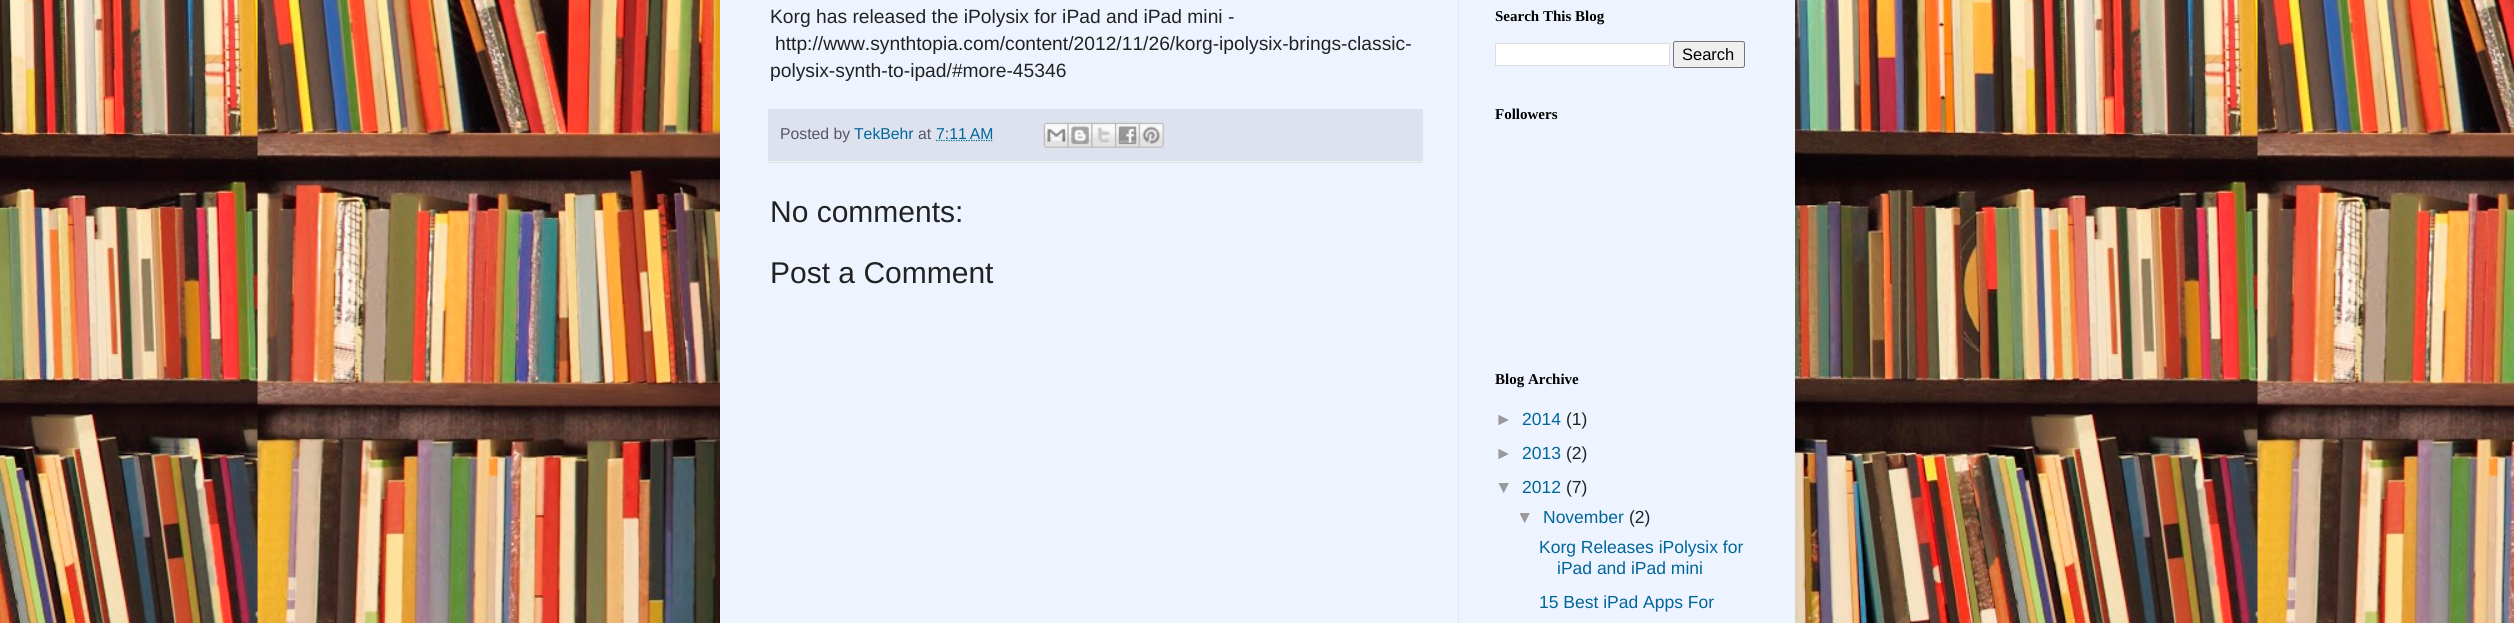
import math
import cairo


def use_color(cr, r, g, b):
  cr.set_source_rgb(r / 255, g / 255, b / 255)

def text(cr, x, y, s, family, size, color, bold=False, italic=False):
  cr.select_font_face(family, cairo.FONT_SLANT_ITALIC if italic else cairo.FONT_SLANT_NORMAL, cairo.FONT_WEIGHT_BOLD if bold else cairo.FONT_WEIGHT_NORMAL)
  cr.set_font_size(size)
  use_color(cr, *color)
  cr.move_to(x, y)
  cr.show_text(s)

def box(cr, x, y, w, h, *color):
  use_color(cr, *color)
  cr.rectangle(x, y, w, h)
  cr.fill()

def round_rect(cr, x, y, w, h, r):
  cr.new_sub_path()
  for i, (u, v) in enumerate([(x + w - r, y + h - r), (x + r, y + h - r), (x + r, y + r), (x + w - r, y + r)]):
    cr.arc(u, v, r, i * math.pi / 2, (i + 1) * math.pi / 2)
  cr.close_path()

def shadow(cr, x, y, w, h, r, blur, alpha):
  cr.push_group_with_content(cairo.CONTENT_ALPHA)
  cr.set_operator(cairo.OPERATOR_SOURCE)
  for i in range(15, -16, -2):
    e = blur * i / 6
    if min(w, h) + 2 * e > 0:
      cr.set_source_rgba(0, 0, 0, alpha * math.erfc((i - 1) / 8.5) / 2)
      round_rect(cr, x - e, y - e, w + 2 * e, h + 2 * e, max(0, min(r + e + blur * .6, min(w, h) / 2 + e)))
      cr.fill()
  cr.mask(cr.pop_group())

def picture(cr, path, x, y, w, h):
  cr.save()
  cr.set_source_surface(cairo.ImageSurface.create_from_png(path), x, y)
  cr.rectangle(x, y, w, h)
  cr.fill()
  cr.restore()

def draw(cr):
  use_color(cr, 255, 255, 255)
  cr.paint()
  picture(cr, "img_01.png", 0, 0, 2514, 623)
  use_color(cr, 0, 0, 0)
  shadow(cr, 720, -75, 1075, 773, 0, 25, 0.15)
  box(cr, 720, 0, 1075, 623, 238, 244, 255)
  box(cr, 1458, 0, 1, 623, 221, 230, 238)
  box(cr, 768, 109, 655, 54, 221, 226, 238)
  box(cr, 768, 161, 655, 1, 238, 238, 238)
  cr.new_path()
  cr.move_to(936, 140.5)
  cr.line_to(993, 140.5)
  use_color(cr, 0, 101, 153)
  cr.set_line_width(1.2)
  cr.set_dash([1.25, 1.25])
  cr.stroke()
  picture(cr, "img_02.png", 1043, 122, 26, 26)
  picture(cr, "img_03.png", 1067, 122, 26, 26)
  picture(cr, "img_04.png", 1091, 122, 26, 26)
  picture(cr, "img_05.png", 1115, 122, 25, 26)
  picture(cr, "img_06.png", 1138, 122, 26, 26)
  use_color(cr, 255, 255, 255)
  cr.rectangle(1495.5, 43.5, 174, 22)
  cr.fill_preserve()
  use_color(cr, 221, 221, 221)
  cr.set_line_width(1)
  cr.set_dash([])
  cr.stroke()
  use_color(cr, 239, 239, 239)
  round_rect(cr, 1673.5, 41.5, 71, 26, 2)
  cr.fill_preserve()
  use_color(cr, 118, 118, 118)
  cr.stroke()
  text(cr, 770, 23, "Korg has released the iPolysix for iPad and iPad mini -", "Liberation Sans", 19.25, (34, 34, 34))
  text(cr, 775, 50, "http://www.synthtopia.com/content/2012/11/26/korg-ipolysix-brings-classic-", "Liberation Sans", 19.25, (34, 34, 34))
  text(cr, 770, 77, "polysix-synth-to-ipad/#more-45346", "Liberation Sans", 19.25, (34, 34, 34))
  text(cr, 780, 139, "Posted by", "Liberation Sans", 15.75, (85, 85, 102))
  text(cr, 854, 139, "TekBehr", "Liberation Sans", 15.75, (0, 101, 153))
  text(cr, 918, 139, "at", "Liberation Sans", 15.75, (85, 85, 102))
  text(cr, 936, 139, "7:11 AM", "Liberation Sans", 15.75, (0, 101, 153))
  text(cr, 770, 222, "No comments:", "Liberation Sans", 30, (34, 34, 34))
  text(cr, 770, 283, "Post a Comment", "Liberation Sans", 30, (34, 34, 34))
  text(cr, 1495, 21, "Search This Blog", "Liberation Serif", 15, (0, 0, 0), bold=True)
  text(cr, 1682, 60, "Search", "Liberation Sans", 16.5, (0, 0, 0))
  text(cr, 1495, 119, "Followers", "Liberation Serif", 15, (0, 0, 0), bold=True)
  text(cr, 1495, 384, "Blog Archive", "Liberation Serif", 15, (0, 0, 0), bold=True)
  text(cr, 1495, 425, "►", "Liberation Sans", 17.5, (153, 153, 153))
  text(cr, 1522, 425, "2014", "Liberation Sans", 17.5, (0, 101, 153))
  text(cr, 1566, 425, "(1)", "Liberation Sans", 17.5, (34, 34, 34))
  text(cr, 1495, 459, "►", "Liberation Sans", 17.5, (153, 153, 153))
  text(cr, 1522, 459, "2013", "Liberation Sans", 17.5, (0, 101, 153))
  text(cr, 1566, 459, "(2)", "Liberation Sans", 17.5, (34, 34, 34))
  text(cr, 1495, 493, "▼", "Liberation Sans", 17.5, (153, 153, 153))
  text(cr, 1522, 493, "2012", "Liberation Sans", 17.5, (0, 101, 153))
  text(cr, 1566, 493, "(7)", "Liberation Sans", 17.5, (34, 34, 34))
  text(cr, 1516, 523, "▼", "Liberation Sans", 17.5, (153, 153, 153))
  text(cr, 1543, 523, "November", "Liberation Sans", 17.5, (0, 101, 153))
  text(cr, 1629, 523, "(2)", "Liberation Sans", 17.5, (34, 34, 34))
  text(cr, 1539, 553, "Korg Releases iPolysix for", "Liberation Sans", 17.5, (0, 101, 153))
  text(cr, 1557, 574, "iPad and iPad mini", "Liberation Sans", 17.5, (0, 101, 153))
  text(cr, 1539, 608, "15 Best iPad Apps For", "Liberation Sans", 17.5, (0, 101, 153))


surface = cairo.ImageSurface(cairo.FORMAT_RGB24, 2514, 623)
cr = cairo.Context(surface)
options = cairo.FontOptions()
options.set_hint_metrics(cairo.HINT_METRICS_OFF)
options.set_hint_style(cairo.HINT_STYLE_NONE)
cr.set_font_options(options)
cr.set_miter_limit(4)
draw(cr)
surface.write_to_png("out.png")
